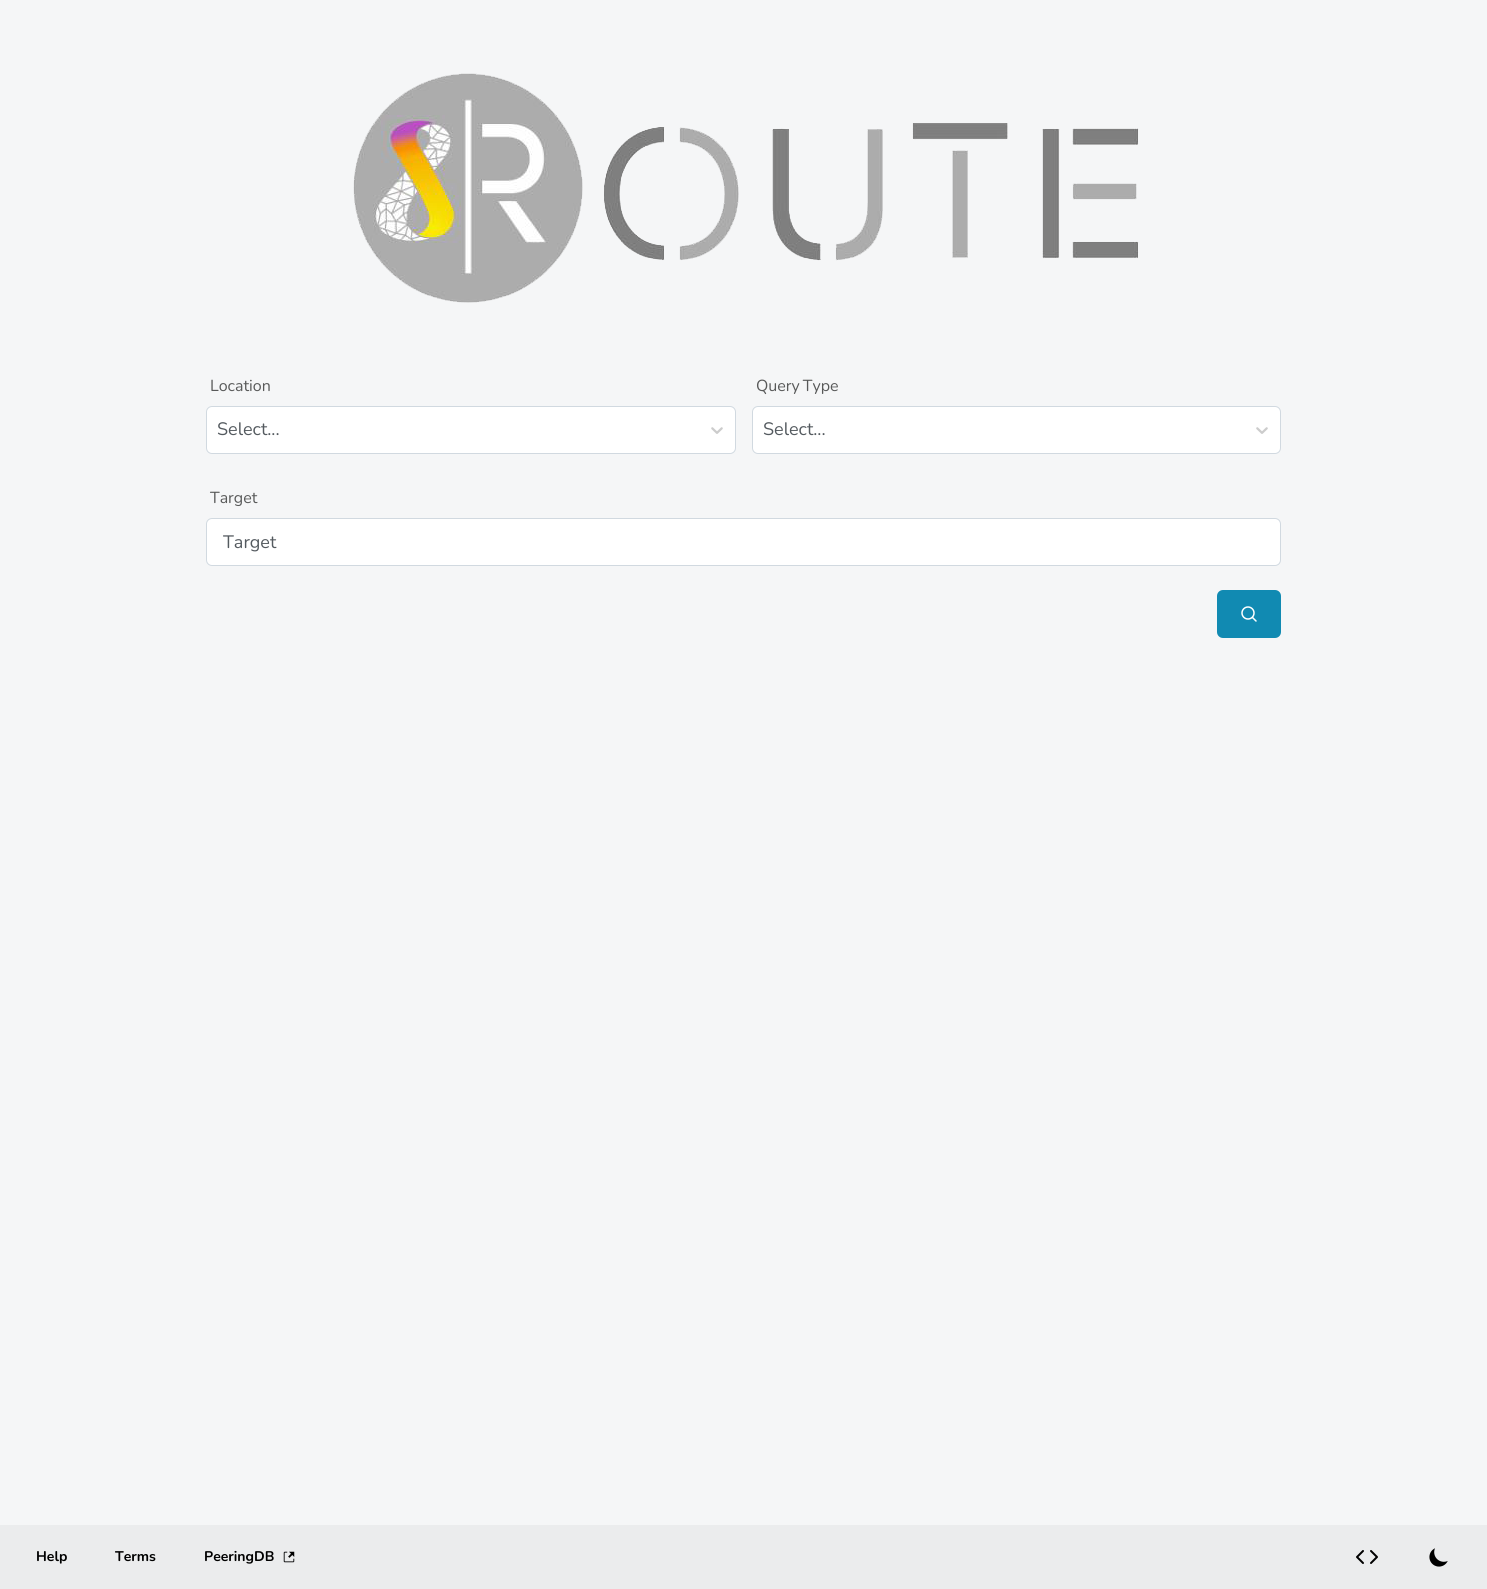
import math
import cairo


def use_color(cr, r, g, b):
  cr.set_source_rgb(r / 255, g / 255, b / 255)

def text(cr, x, y, s, family, size, color, bold=False, italic=False):
  cr.select_font_face(family, cairo.FONT_SLANT_ITALIC if italic else cairo.FONT_SLANT_NORMAL, cairo.FONT_WEIGHT_BOLD if bold else cairo.FONT_WEIGHT_NORMAL)
  cr.set_font_size(size)
  use_color(cr, *color)
  cr.move_to(x, y)
  cr.show_text(s)

def spaced_text(cr, x, y, s, letter, word):
  cr.move_to(x, y)
  for ch in s:
    cr.show_text(ch)
    cr.rel_move_to(letter + word * (ch == ' '), 0)

def box(cr, x, y, w, h, *color):
  use_color(cr, *color)
  cr.rectangle(x, y, w, h)
  cr.fill()

def round_rect(cr, x, y, w, h, r):
  cr.new_sub_path()
  for i, (u, v) in enumerate([(x + w - r, y + h - r), (x + r, y + h - r), (x + r, y + r), (x + w - r, y + r)]):
    cr.arc(u, v, r, i * math.pi / 2, (i + 1) * math.pi / 2)
  cr.close_path()

def picture(cr, path, x, y, w, h):
  cr.save()
  cr.set_source_surface(cairo.ImageSurface.create_from_png(path), x, y)
  cr.rectangle(x, y, w, h)
  cr.fill()
  cr.restore()

def draw(cr):
  use_color(cr, 245, 246, 247)
  cr.paint()
  picture(cr, "img_01.png", 353, 73, 786, 230)
  use_color(cr, 255, 255, 255)
  round_rect(cr, 206.5, 406.5, 529, 47, 5.5)
  cr.fill_preserve()
  use_color(cr, 209, 217, 224)
  cr.set_line_width(1)
  cr.stroke()
  picture(cr, "img_02.png", 711, 427, 12, 7)
  use_color(cr, 255, 255, 255)
  round_rect(cr, 752.5, 406.5, 528, 47, 5.5)
  cr.fill_preserve()
  use_color(cr, 209, 217, 224)
  cr.stroke()
  picture(cr, "img_02.png", 1256, 427, 12, 7)
  use_color(cr, 255, 255, 255)
  round_rect(cr, 206.5, 518.5, 1074, 47, 5.5)
  cr.fill_preserve()
  use_color(cr, 209, 217, 224)
  cr.stroke()
  use_color(cr, 17, 138, 178)
  round_rect(cr, 1217, 590, 64, 48, 6)
  cr.fill()
  cr.arc(1248, 613, 6, 0, 2 * math.pi)
  use_color(cr, 255, 255, 255)
  cr.set_line_width(1.5)
  cr.stroke()
  cr.new_path()
  cr.move_to(1256, 621)
  cr.line_to(1252.5, 617.5)
  cr.set_line_cap(cairo.LINE_CAP_ROUND)
  cr.set_line_join(cairo.LINE_JOIN_ROUND)
  cr.stroke()
  box(cr, 0, 1525, 1487, 64, 235, 236, 237)
  picture(cr, "img_03.png", 283, 1551, 12, 12)
  cr.new_path()
  cr.move_to(1371, 1563)
  cr.line_to(1377, 1557)
  cr.line_to(1371, 1551)
  cr.move_to(1363, 1551)
  cr.line_to(1357, 1557)
  cr.line_to(1363, 1563)
  use_color(cr, 0, 0, 0)
  cr.set_line_width(2)
  cr.stroke()
  picture(cr, "img_04.png", 1429, 1548, 19, 19)
  text(cr, 210, 391, "Location", "Nunito", 16, (88, 89, 89))
  text(cr, 217, 435, "Select...", "Nunito", 18, (84, 90, 95))
  cr.set_font_size(16)
  use_color(cr, 88, 89, 89)
  spaced_text(cr, 756, 391, "Query Type", 0, -1)
  text(cr, 763, 435, "Select...", "Nunito", 18, (84, 90, 95))
  text(cr, 210, 503, "Target", "Nunito", 16, (88, 89, 89))
  text(cr, 223, 548, "Target", "Nunito", 18, (84, 90, 95))
  text(cr, 36, 1561, "Help", "Nunito", 14, (0, 0, 0), bold=True)
  text(cr, 115, 1561, "Terms", "Nunito", 14, (0, 0, 0), bold=True)
  text(cr, 204, 1561, "PeeringDB", "Nunito", 14, (0, 0, 0), bold=True)


surface = cairo.ImageSurface(cairo.FORMAT_RGB24, 1487, 1589)
cr = cairo.Context(surface)
options = cairo.FontOptions()
options.set_hint_metrics(cairo.HINT_METRICS_OFF)
options.set_hint_style(cairo.HINT_STYLE_NONE)
cr.set_font_options(options)
cr.set_miter_limit(4)
draw(cr)
surface.write_to_png("out.png")
